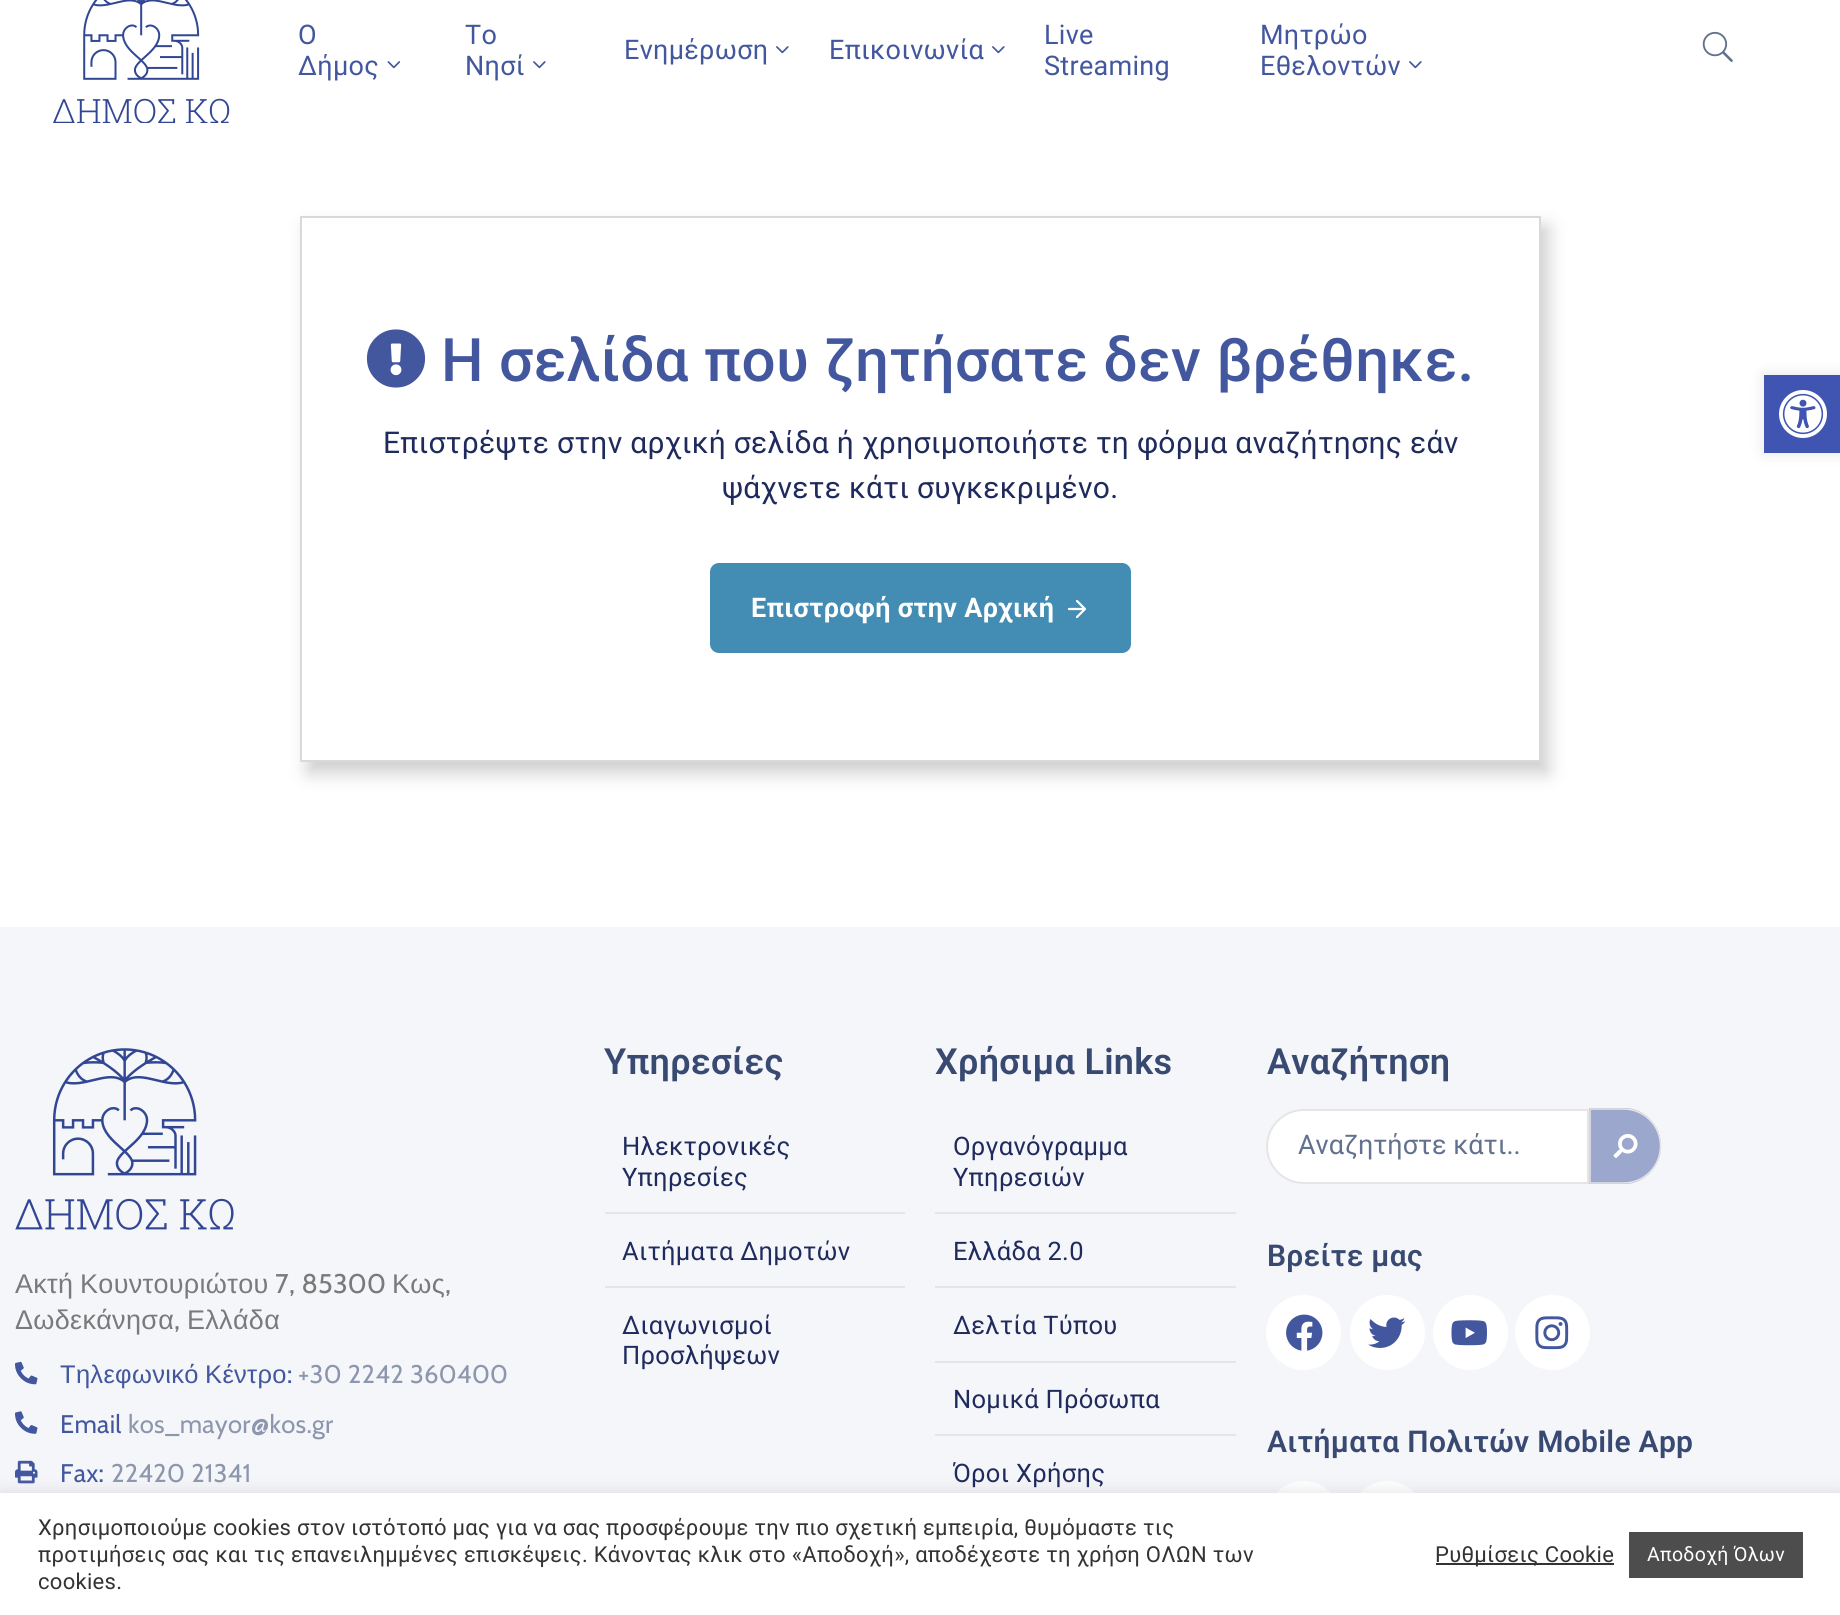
import math
import cairo


def use_color(cr, r, g, b):
  cr.set_source_rgb(r / 255, g / 255, b / 255)

def text(cr, x, y, s, family, size, color, bold=False, italic=False):
  cr.select_font_face(family, cairo.FONT_SLANT_ITALIC if italic else cairo.FONT_SLANT_NORMAL, cairo.FONT_WEIGHT_BOLD if bold else cairo.FONT_WEIGHT_NORMAL)
  cr.set_font_size(size)
  use_color(cr, *color)
  cr.move_to(x, y)
  cr.show_text(s)

def spaced_text(cr, x, y, s, letter, word):
  cr.move_to(x, y)
  for ch in s:
    cr.show_text(ch)
    cr.rel_move_to(letter + word * (ch == ' '), 0)

def box(cr, x, y, w, h, *color):
  use_color(cr, *color)
  cr.rectangle(x, y, w, h)
  cr.fill()

def round_rect(cr, x, y, w, h, r):
  cr.new_sub_path()
  for i, (u, v) in enumerate([(x + w - r, y + h - r), (x + r, y + h - r), (x + r, y + r), (x + w - r, y + r)]):
    cr.arc(u, v, r, i * math.pi / 2, (i + 1) * math.pi / 2)
  cr.close_path()

def shadow(cr, x, y, w, h, r, blur, alpha):
  cr.push_group_with_content(cairo.CONTENT_ALPHA)
  cr.set_operator(cairo.OPERATOR_SOURCE)
  for i in range(15, -16, -2):
    e = blur * i / 6
    if min(w, h) + 2 * e > 0:
      cr.set_source_rgba(0, 0, 0, alpha * math.erfc((i - 1) / 8.5) / 2)
      round_rect(cr, x - e, y - e, w + 2 * e, h + 2 * e, max(0, min(r + e + blur * .6, min(w, h) / 2 + e)))
      cr.fill()
  cr.mask(cr.pop_group())

def picture(cr, path, x, y, w, h):
  cr.save()
  cr.set_source_surface(cairo.ImageSurface.create_from_png(path), x, y)
  cr.rectangle(x, y, w, h)
  cr.fill()
  cr.restore()

def draw(cr):
  use_color(cr, 255, 255, 255)
  cr.paint()
  picture(cr, "img_01.png", 53, 0, 177, 123)
  picture(cr, "img_02.png", 387, 61, 14, 8)
  picture(cr, "img_03.png", 533, 61, 13, 8)
  picture(cr, "img_03.png", 776, 46, 13, 8)
  picture(cr, "img_03.png", 992, 46, 13, 8)
  picture(cr, "img_03.png", 1409, 61, 13, 8)
  picture(cr, "img_04.png", 1702, 31, 31, 31)
  cr.save()
  cr.set_fill_rule(cairo.FILL_RULE_EVEN_ODD)
  cr.new_path()
  cr.move_to(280, 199)
  cr.line_to(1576, 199)
  cr.line_to(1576, 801)
  cr.line_to(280, 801)
  cr.close_path()
  cr.move_to(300, 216)
  cr.line_to(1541, 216)
  cr.line_to(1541, 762)
  cr.line_to(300, 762)
  cr.close_path()
  cr.clip()
  use_color(cr, 136, 136, 136)
  shadow(cr, 308, 227, 1240, 546, 0, 9, 0.42)
  cr.restore()
  cr.rectangle(301, 217, 1239, 544)
  cr.set_source_rgba(0, 0, 0, 0.15)
  cr.stroke()
  picture(cr, "img_05.png", 366, 329, 60, 59)
  use_color(cr, 67, 140, 179)
  round_rect(cr, 710, 563, 421, 90, 9)
  cr.fill()
  cr.new_path()
  cr.move_to(1069, 609)
  cr.line_to(1085, 609)
  cr.move_to(1077, 601)
  cr.line_to(1085, 609)
  cr.line_to(1077, 617)
  use_color(cr, 255, 255, 255)
  cr.set_line_width(2.2)
  cr.set_line_cap(cairo.LINE_CAP_ROUND)
  cr.set_line_join(cairo.LINE_JOIN_ROUND)
  cr.stroke()
  box(cr, 0, 927, 1840, 566, 245, 246, 250)
  picture(cr, "img_06.png", 15, 1048, 219, 182)
  picture(cr, "img_07.png", 15, 1361, 23, 24)
  picture(cr, "img_08.png", 15, 1411, 23, 23)
  picture(cr, "img_09.png", 15, 1460, 23, 24)
  box(cr, 605, 1212, 300, 2, 229, 229, 229)
  box(cr, 605, 1286, 300, 2, 229, 229, 229)
  box(cr, 935, 1212, 301, 2, 229, 229, 229)
  box(cr, 935, 1286, 301, 2, 229, 229, 229)
  box(cr, 935, 1361, 301, 2, 229, 229, 229)
  box(cr, 935, 1434, 301, 2, 229, 229, 229)
  use_color(cr, 255, 255, 255)
  cr.new_path()
  cr.move_to(1303.5, 1110)
  cr.line_to(1588, 1110)
  cr.line_to(1588, 1183)
  cr.line_to(1303.5, 1183)
  cr.curve_to(1283.5, 1183, 1267, 1166.5, 1267, 1146.5)
  cr.curve_to(1267, 1126.5, 1283.5, 1110, 1303.5, 1110)
  cr.close_path()
  cr.fill_preserve()
  use_color(cr, 229, 229, 229)
  cr.set_line_width(2)
  cr.set_line_cap(cairo.LINE_CAP_BUTT)
  cr.set_line_join(cairo.LINE_JOIN_MITER)
  cr.stroke()
  use_color(cr, 156, 167, 205)
  cr.new_path()
  cr.move_to(1624, 1108)
  cr.line_to(1589, 1108)
  cr.line_to(1589, 1184)
  cr.line_to(1624, 1184)
  cr.curve_to(1644, 1184, 1661, 1167, 1661, 1146)
  cr.curve_to(1661, 1125, 1644, 1108, 1624, 1108)
  cr.close_path()
  cr.fill()
  cr.new_path()
  cr.move_to(1623.5, 1109)
  cr.line_to(1590, 1109)
  cr.line_to(1590, 1183)
  cr.line_to(1623.5, 1183)
  cr.curve_to(1644, 1183, 1660.5, 1166.5, 1660.5, 1146)
  cr.curve_to(1660.5, 1125.5, 1644, 1109, 1623.5, 1109)
  cr.close_path()
  use_color(cr, 229, 229, 229)
  cr.set_line_width(1.5)
  cr.stroke()
  picture(cr, "img_10.png", 1613, 1134, 25, 24)
  use_color(cr, 255, 255, 255)
  cr.arc(1303.5, 1332.5, 37.5, 0, 2 * math.pi)
  cr.fill()
  picture(cr, "img_11.png", 1286, 1314, 37, 37)
  cr.arc(1387.5, 1332.5, 37.5, 0, 2 * math.pi)
  cr.fill()
  picture(cr, "img_12.png", 1368, 1317, 38, 31)
  cr.arc(1470.5, 1332.5, 37.5, 0, 2 * math.pi)
  cr.fill()
  picture(cr, "img_13.png", 1451, 1320, 36, 26)
  cr.arc(1552.5, 1332.5, 37.5, 0, 2 * math.pi)
  cr.fill()
  picture(cr, "img_14.png", 1535, 1316, 34, 34)
  cr.arc(1303.5, 1518.5, 37.5, 0, 2 * math.pi)
  cr.fill()
  cr.arc(1387.5, 1518.5, 37.5, 0, 2 * math.pi)
  cr.fill()
  use_color(cr, 0, 0, 0)
  shadow(cr, 1764, 375, 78, 78, 0, 7.5, 0.1)
  box(cr, 1764, 375, 76, 78, 64, 84, 178)
  picture(cr, "img_15.png", 1779, 390, 48, 48)
  use_color(cr, 172, 171, 171)
  shadow(cr, 0, 1491, 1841, 123, 0, 7.5, 0.3)
  box(cr, 0, 1493, 1840, 122, 255, 255, 255)
  box(cr, 1436, 1563, 178, 2, 51, 51, 51)
  box(cr, 1629, 1532, 174, 46, 77, 77, 77)
  cr.select_font_face("Roboto")
  cr.set_font_size(27)
  use_color(cr, 67, 87, 159)
  spaced_text(cr, 298, 44, "Ο", 0.3, 0)
  spaced_text(cr, 298, 75, "Δήμος", 0.3, 0)
  spaced_text(cr, 465, 44, "Το", 0.3, 0)
  spaced_text(cr, 465, 75, "Νησί", 0.3, 0)
  spaced_text(cr, 624, 59, "Ενημέρωση", 0.3, 0)
  spaced_text(cr, 829, 59, "Επικοινωνία", 0.3, 0)
  spaced_text(cr, 1044, 44, "Live", 0.3, 0)
  spaced_text(cr, 1044, 75, "Streaming", 0.3, 0)
  spaced_text(cr, 1260, 44, "Μητρώο", 0.3, 0)
  spaced_text(cr, 1260, 75, "Εθελοντών", 0.3, 0)
  cr.select_font_face("Roboto Medium")
  cr.set_font_size(60)
  spaced_text(cr, 441, 381, "Η σελίδα που ζητήσατε δεν βρέθηκε.", 0.3, 0)
  cr.select_font_face("Roboto")
  cr.set_font_size(30)
  use_color(cr, 32, 43, 93)
  spaced_text(cr, 383, 453, "Επιστρέψτε στην αρχική σελίδα ή χρησιμοποιήστε τη φόρμα αναζήτησης εάν", 0.3, 0)
  spaced_text(cr, 722, 498, "ψάχνετε κάτι συγκεκριμένο.", 0.3, 0)
  cr.select_font_face("Roboto", cairo.FONT_SLANT_NORMAL, cairo.FONT_WEIGHT_BOLD)
  cr.set_font_size(27)
  use_color(cr, 255, 255, 255)
  spaced_text(cr, 751, 617, "Επιστροφή στην Αρχική", 0.3, 0)
  cr.select_font_face("Liberation Sans")
  use_color(cr, 122, 122, 122)
  spaced_text(cr, 15, 1293, "Ακτή", 0.3, 0)
  spaced_text(cr, 80, 1293, "Κουντουριώτου", 0.3, 0)
  cr.select_font_face("Cabin")
  spaced_text(cr, 275, 1293, "7, 85300", 0.3, 0)
  cr.select_font_face("Liberation Sans")
  spaced_text(cr, 392, 1293, "Κως", 0.3, 0)
  cr.select_font_face("Cabin")
  spaced_text(cr, 445, 1293, ",", 0.3, 0)
  cr.select_font_face("Liberation Sans")
  spaced_text(cr, 15, 1329, "Δωδεκάνησα", 0.3, 0)
  cr.select_font_face("Cabin")
  spaced_text(cr, 174, 1329, ",", 0.3, 0)
  cr.select_font_face("Liberation Sans")
  spaced_text(cr, 187, 1329, "Ελλάδα", 0.3, 0)
  cr.set_font_size(25.5)
  use_color(cr, 67, 87, 159)
  spaced_text(cr, 60, 1383, "Τηλεφωνικό Κέντρο", 0.3, -1)
  cr.select_font_face("Cabin")
  spaced_text(cr, 287, 1383, ":", 0.3, 0)
  use_color(cr, 140, 150, 172)
  spaced_text(cr, 298, 1383, "+30 2242 360400", 0.3, 0)
  use_color(cr, 67, 87, 159)
  spaced_text(cr, 60, 1433, "Email", 0.3, 0)
  use_color(cr, 140, 150, 172)
  spaced_text(cr, 128, 1433, "kos_mayor@kos.gr", 0.3, 0)
  use_color(cr, 67, 87, 159)
  spaced_text(cr, 60, 1482, "Fax:", 0.3, 0)
  use_color(cr, 140, 150, 172)
  spaced_text(cr, 111, 1482, "22420 21341", 0.3, 0)
  cr.select_font_face("Roboto SemiBold")
  cr.set_font_size(36)
  use_color(cr, 57, 74, 114)
  spaced_text(cr, 604, 1074, "Υπηρεσίες", 0.3, 0)
  cr.select_font_face("Roboto")
  cr.set_font_size(25.5)
  use_color(cr, 32, 43, 93)
  spaced_text(cr, 622, 1155, "Ηλεκτρονικές", 0.3, 0)
  spaced_text(cr, 622, 1186, "Υπηρεσίες", 0.3, 0)
  spaced_text(cr, 622, 1260, "Αιτήματα Δημοτών", 0.3, 0)
  spaced_text(cr, 622, 1334, "Διαγωνισμοί", 0.3, 0)
  spaced_text(cr, 622, 1364, "Προσλήψεων", 0.3, 0)
  cr.select_font_face("Roboto SemiBold")
  cr.set_font_size(36)
  use_color(cr, 57, 74, 114)
  spaced_text(cr, 935, 1074, "Χρήσιμα Links", 0.3, 0)
  cr.select_font_face("Roboto")
  cr.set_font_size(25.5)
  use_color(cr, 32, 43, 93)
  spaced_text(cr, 953, 1155, "Οργανόγραμμα", 0.3, 0)
  spaced_text(cr, 953, 1186, "Υπηρεσιών", 0.3, 0)
  spaced_text(cr, 953, 1260, "Ελλάδα 2.0", 0.3, 0)
  spaced_text(cr, 953, 1334, "Δελτία Τύπου", 0.3, 0)
  spaced_text(cr, 953, 1408, "Νομικά Πρόσωπα", 0.3, 0)
  spaced_text(cr, 953, 1482, "Όροι Χρήσης", 0.3, 0)
  cr.select_font_face("Roboto SemiBold")
  cr.set_font_size(36)
  use_color(cr, 57, 74, 114)
  spaced_text(cr, 1267, 1074, "Αναζήτηση", 0.3, 0)
  text(cr, 1298, 1154, "Αναζητήστε κάτι..", "Roboto", 27, (98, 113, 141))
  cr.select_font_face("Roboto SemiBold")
  cr.set_font_size(30)
  use_color(cr, 57, 74, 114)
  spaced_text(cr, 1267, 1266, "Βρείτε μας", 0.3, 0)
  spaced_text(cr, 1267, 1452, "Αιτήματα Πολιτών Mobile App", 0.3, 0)
  cr.select_font_face("Roboto")
  cr.set_font_size(22)
  use_color(cr, 51, 51, 51)
  spaced_text(cr, 38, 1535, "Χρησιμοποιούμε cookies στον ιστότοπό μας για να σας προσφέρουμε την πιο σχετική εμπειρία, θυμόμαστε τις", 0.3, 0)
  spaced_text(cr, 38, 1562, "προτιμήσεις σας και τις επανειλημμένες επισκέψεις. Κάνοντας κλικ στο «Αποδοχή», αποδέχεστε τη χρήση ΟΛΩΝ των", 0.3, 0)
  spaced_text(cr, 38, 1589, "cookies.", 0.3, 0)
  spaced_text(cr, 1435, 1562, "Ρυθμίσεις Cookie", 0.3, 0)
  cr.set_font_size(19.5)
  use_color(cr, 255, 255, 255)
  spaced_text(cr, 1647, 1561, "Αποδοχή Όλων", 0.3, 0)


surface = cairo.ImageSurface(cairo.FORMAT_RGB24, 1840, 1615)
cr = cairo.Context(surface)
options = cairo.FontOptions()
options.set_hint_metrics(cairo.HINT_METRICS_OFF)
options.set_hint_style(cairo.HINT_STYLE_NONE)
cr.set_font_options(options)
cr.set_miter_limit(4)
draw(cr)
surface.write_to_png("out.png")
